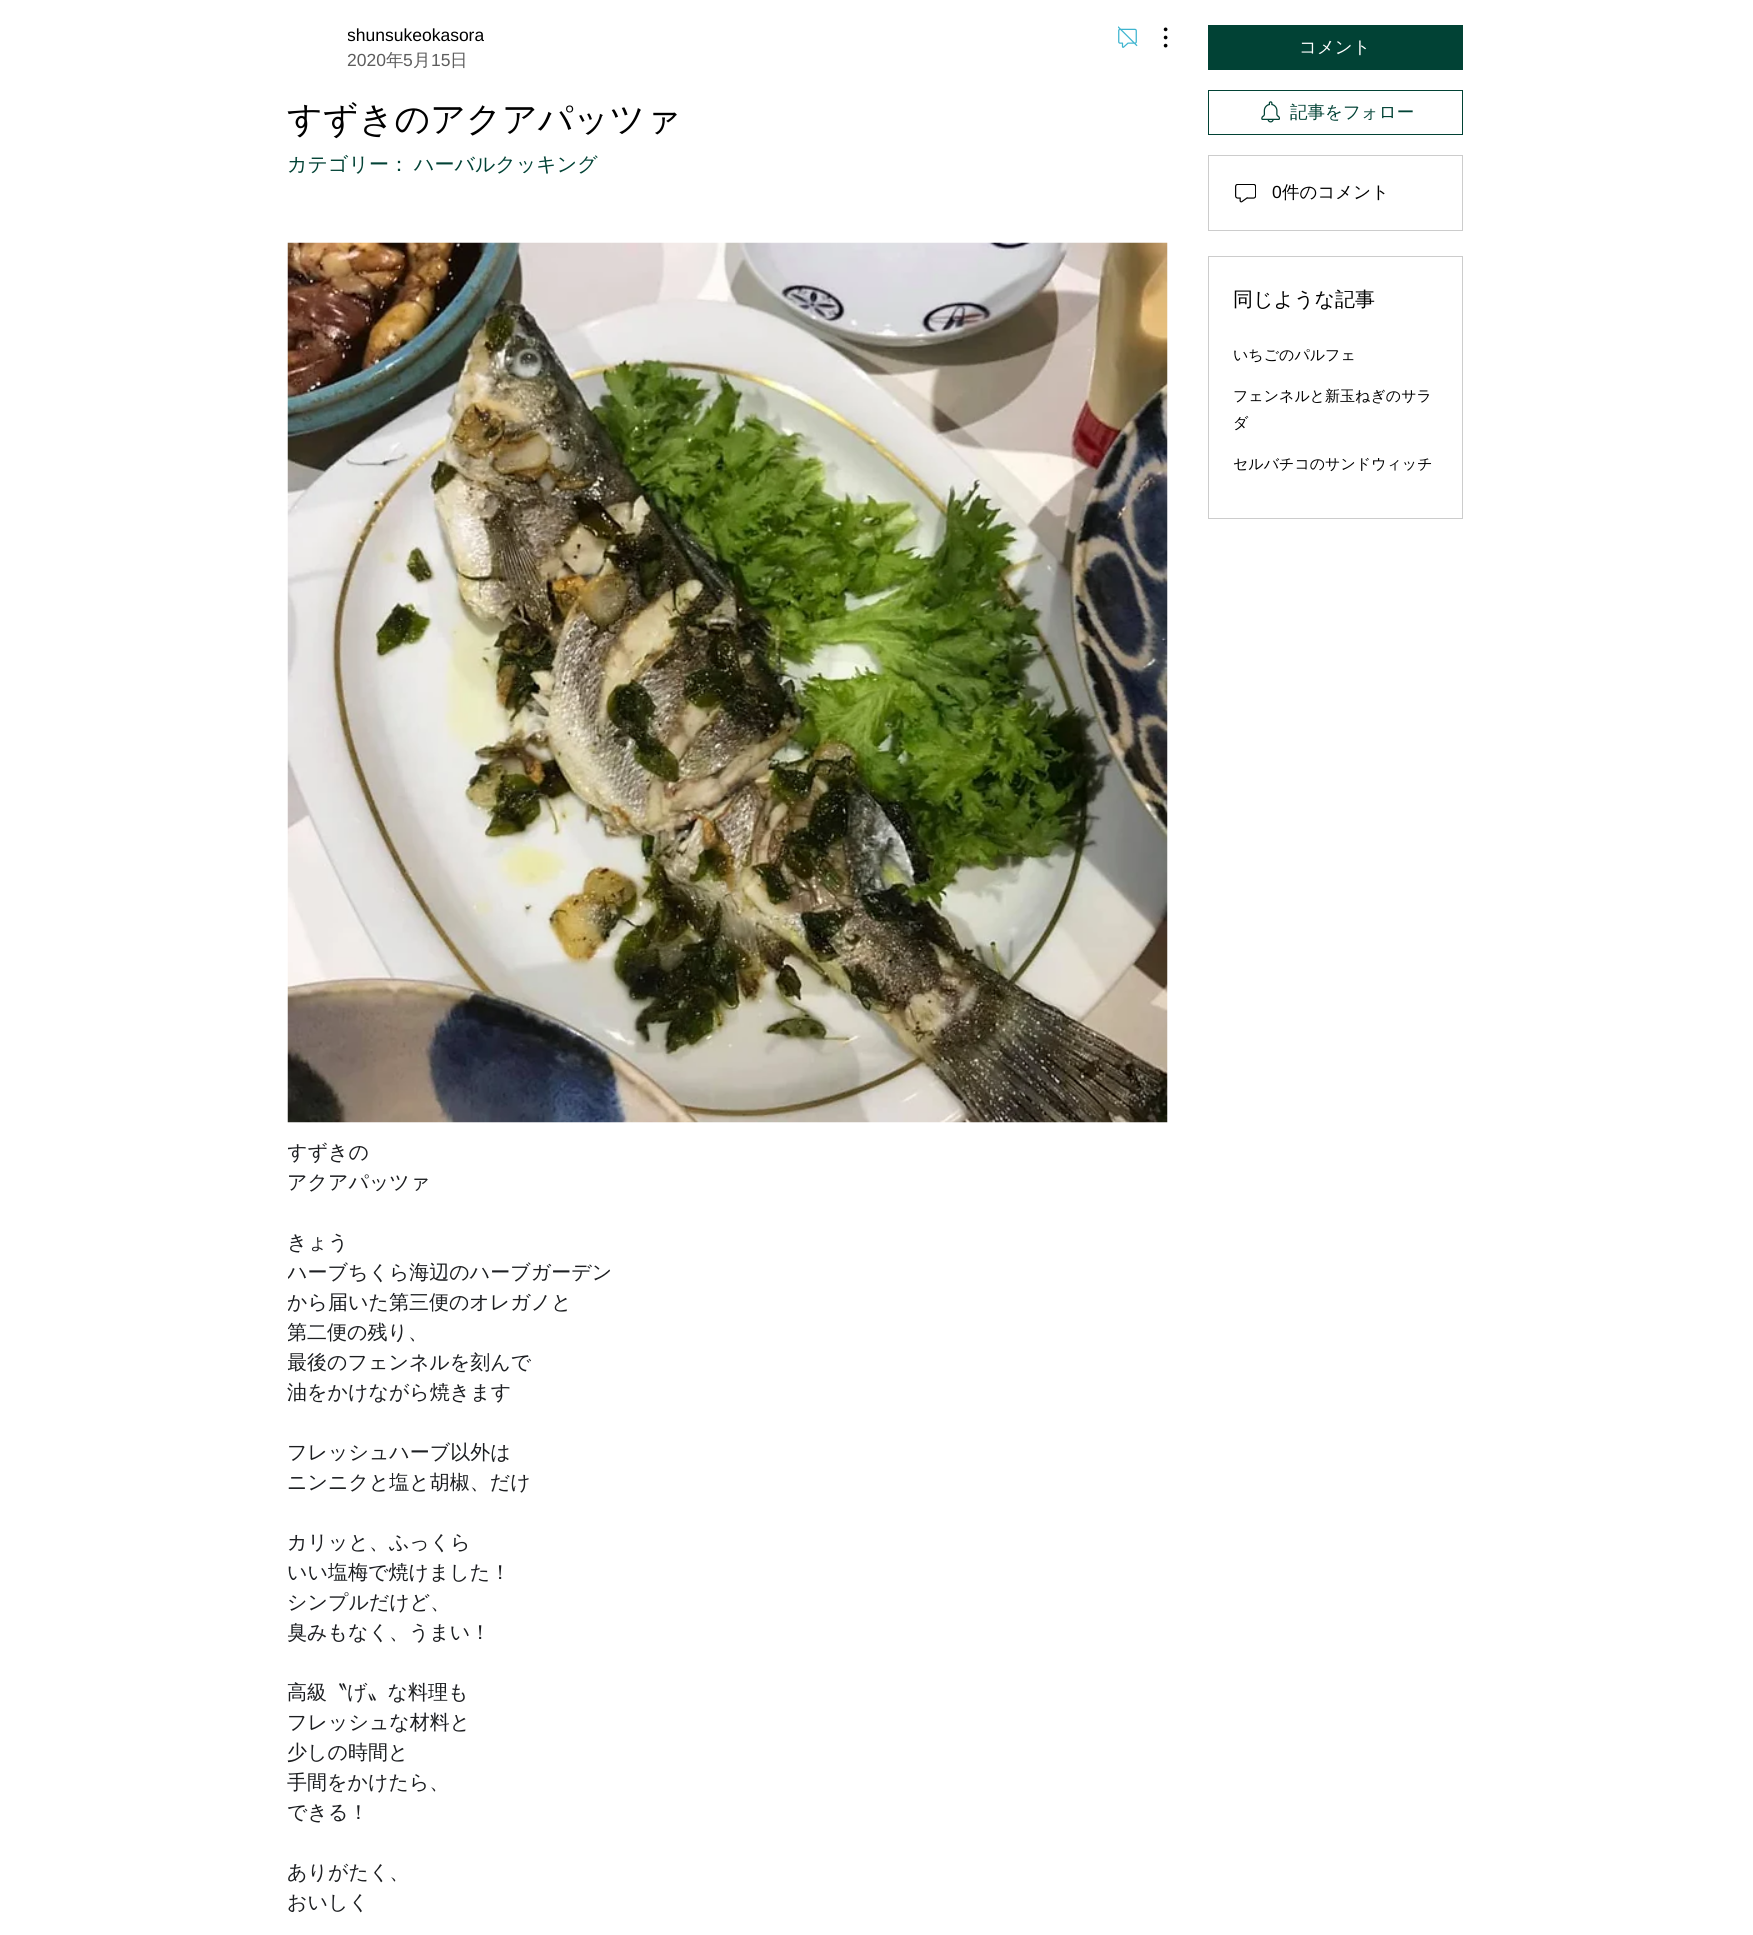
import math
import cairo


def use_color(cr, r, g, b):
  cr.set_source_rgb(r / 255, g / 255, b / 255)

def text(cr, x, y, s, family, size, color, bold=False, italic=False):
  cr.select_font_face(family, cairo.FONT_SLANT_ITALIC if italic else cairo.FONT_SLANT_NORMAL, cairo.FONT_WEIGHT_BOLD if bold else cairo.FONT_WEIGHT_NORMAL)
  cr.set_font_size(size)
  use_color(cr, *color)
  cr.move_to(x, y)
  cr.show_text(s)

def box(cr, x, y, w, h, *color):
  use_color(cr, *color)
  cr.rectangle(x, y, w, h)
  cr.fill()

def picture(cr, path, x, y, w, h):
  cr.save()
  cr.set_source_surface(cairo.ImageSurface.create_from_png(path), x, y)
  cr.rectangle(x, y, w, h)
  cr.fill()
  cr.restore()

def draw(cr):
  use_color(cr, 255, 255, 255)
  cr.paint()
  picture(cr, "img_01.png", 1118, 26, 20, 22)
  picture(cr, "img_02.png", 1163, 27, 5, 21)
  picture(cr, "img_03.png", 287, 242, 881, 881)
  box(cr, 1208, 25, 255, 45, 1, 66, 53)
  cr.rectangle(1208.5, 90.5, 254, 44)
  cr.set_line_width(1)
  cr.stroke()
  picture(cr, "img_04.png", 1261, 101, 19, 22)
  cr.rectangle(1208.5, 155.5, 254, 75)
  use_color(cr, 204, 204, 204)
  cr.stroke()
  picture(cr, "img_05.png", 1235, 184, 21, 19)
  cr.rectangle(1208.5, 256.5, 254, 262)
  cr.stroke()
  cr.save()
  cr.rectangle(348, 23, 136, 25)
  cr.clip()
  text(cr, 347, 41, "shunsukeokasora", "Liberation Sans", 17.5, (0, 0, 0))
  cr.restore()
  text(cr, 347, 66, "2020", "Liberation Sans", 17.5, (92, 92, 92))
  text(cr, 386, 66, "年", "WenQuanYi Zen Hei Medium", 17.5, (92, 92, 92))
  text(cr, 403, 66, "5", "Liberation Sans", 17.5, (92, 92, 92))
  text(cr, 413, 66, "月", "WenQuanYi Zen Hei Medium", 17.5, (92, 92, 92))
  text(cr, 431, 66, "15", "Liberation Sans", 17.5, (92, 92, 92))
  text(cr, 450, 66, "日", "WenQuanYi Zen Hei Medium", 17.5, (92, 92, 92))
  text(cr, 287, 131, "すずきのアクアパッツァ", "WenQuanYi Zen Hei Medium", 35, (0, 0, 0))
  text(cr, 287, 171, "カテゴリー：", "WenQuanYi Zen Hei Medium", 20, (1, 66, 53))
  text(cr, 414, 171, "ハーバルクッキング", "WenQuanYi Zen Hei Medium", 20, (1, 66, 53))
  cr.save()
  cr.rectangle(288, 198, 880, 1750)
  cr.clip()
  text(cr, 287, 1159, "すずきの", "WenQuanYi Zen Hei Medium", 20, (28, 30, 33))
  cr.restore()
  text(cr, 287, 1189, "アクアパッツァ", "WenQuanYi Zen Hei Medium", 20, (28, 30, 33))
  text(cr, 287, 1249, "きょう", "WenQuanYi Zen Hei Medium", 20, (28, 30, 33))
  cr.save()
  cr.rectangle(288, 198, 880, 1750)
  cr.clip()
  text(cr, 287, 1279, "ハーブちくら海辺のハーブガーデン", "WenQuanYi Zen Hei Medium", 20, (28, 30, 33))
  text(cr, 287, 1309, "から届いた第三便のオレガノと", "WenQuanYi Zen Hei Medium", 20, (28, 30, 33))
  text(cr, 287, 1339, "第二便の残り、", "WenQuanYi Zen Hei Medium", 20, (28, 30, 33))
  text(cr, 287, 1369, "最後のフェンネルを刻んで", "WenQuanYi Zen Hei Medium", 20, (28, 30, 33))
  cr.restore()
  text(cr, 287, 1399, "油をかけながら焼きます", "WenQuanYi Zen Hei Medium", 20, (28, 30, 33))
  text(cr, 287, 1459, "フレッシュハーブ以外は", "WenQuanYi Zen Hei Medium", 20, (28, 30, 33))
  text(cr, 287, 1489, "ニンニクと塩と胡椒、だけ", "WenQuanYi Zen Hei Medium", 20, (28, 30, 33))
  text(cr, 287, 1549, "カリッと、ふっくら", "WenQuanYi Zen Hei Medium", 20, (28, 30, 33))
  text(cr, 287, 1579, "いい塩梅で焼けました！", "WenQuanYi Zen Hei Medium", 20, (28, 30, 33))
  text(cr, 287, 1609, "シンプルだけど、", "WenQuanYi Zen Hei Medium", 20, (28, 30, 33))
  cr.save()
  cr.rectangle(288, 198, 880, 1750)
  cr.clip()
  text(cr, 287, 1639, "臭みもなく、うまい！", "WenQuanYi Zen Hei Medium", 20, (28, 30, 33))
  cr.restore()
  text(cr, 287, 1699, "高級〝げ〟な料理も", "WenQuanYi Zen Hei Medium", 20, (28, 30, 33))
  text(cr, 287, 1729, "フレッシュな材料と", "WenQuanYi Zen Hei Medium", 20, (28, 30, 33))
  text(cr, 287, 1759, "少しの時間と", "WenQuanYi Zen Hei Medium", 20, (28, 30, 33))
  text(cr, 287, 1789, "手間をかけたら、", "WenQuanYi Zen Hei Medium", 20, (28, 30, 33))
  text(cr, 287, 1819, "できる！", "WenQuanYi Zen Hei Medium", 20, (28, 30, 33))
  text(cr, 287, 1879, "ありがたく、", "WenQuanYi Zen Hei Medium", 20, (28, 30, 33))
  text(cr, 287, 1909, "おいしく", "WenQuanYi Zen Hei Medium", 20, (28, 30, 33))
  text(cr, 1299, 53, "コメント", "WenQuanYi Zen Hei Medium", 17.5, (255, 255, 255))
  text(cr, 1290, 118, "記事をフォロー", "WenQuanYi Zen Hei Medium", 17.5, (1, 66, 53))
  text(cr, 1272, 198, "0", "Liberation Sans", 17.5, (0, 0, 0))
  text(cr, 1282, 198, "件のコメント", "WenQuanYi Zen Hei Medium", 17.5, (0, 0, 0))
  text(cr, 1233, 306, "同じような記事", "WenQuanYi Zen Hei Medium", 20, (0, 0, 0))
  text(cr, 1233, 360, "いちごのパルフェ", "WenQuanYi Zen Hei Medium", 15, (0, 0, 0))
  text(cr, 1233, 401, "フェンネルと新玉ねぎのサラ", "WenQuanYi Zen Hei Medium", 15, (0, 0, 0))
  text(cr, 1233, 428, "ダ", "WenQuanYi Zen Hei Medium", 15, (0, 0, 0))
  text(cr, 1233, 469, "セルバチコのサンドウィッチ", "WenQuanYi Zen Hei Medium", 15, (0, 0, 0))


surface = cairo.ImageSurface(cairo.FORMAT_RGB24, 1753, 1935)
cr = cairo.Context(surface)
options = cairo.FontOptions()
options.set_hint_metrics(cairo.HINT_METRICS_OFF)
options.set_hint_style(cairo.HINT_STYLE_NONE)
cr.set_font_options(options)
cr.set_miter_limit(4)
draw(cr)
surface.write_to_png("out.png")
